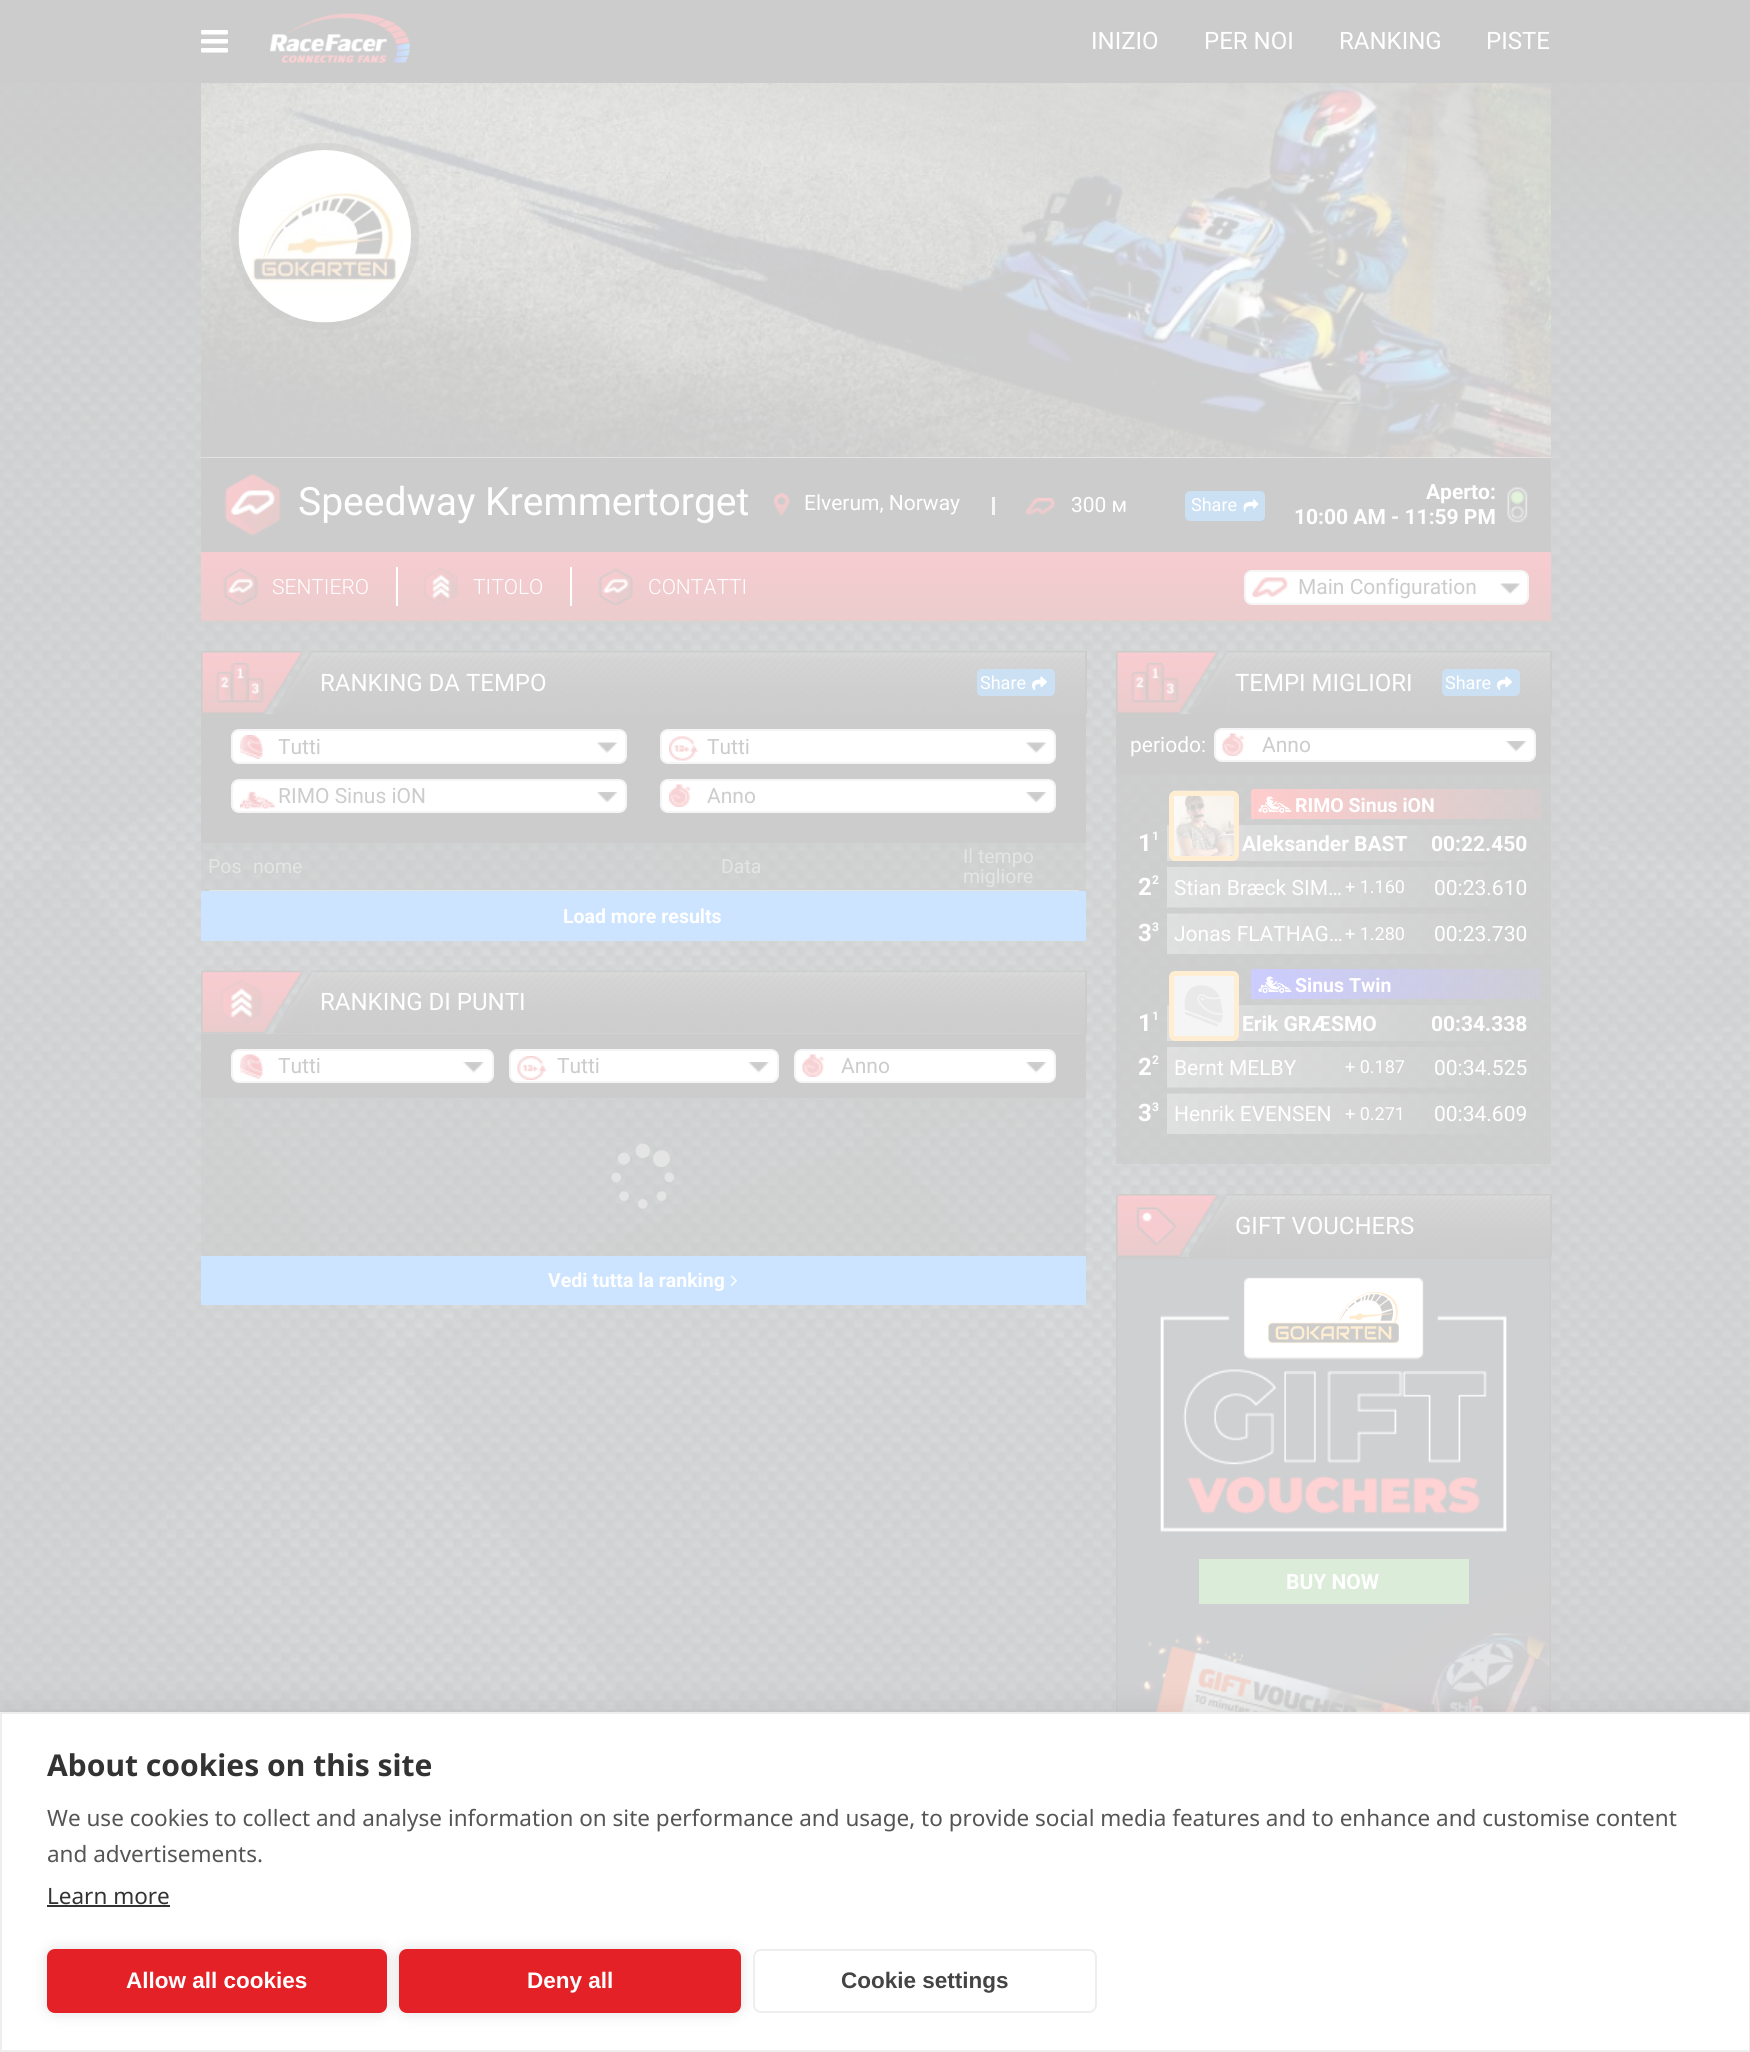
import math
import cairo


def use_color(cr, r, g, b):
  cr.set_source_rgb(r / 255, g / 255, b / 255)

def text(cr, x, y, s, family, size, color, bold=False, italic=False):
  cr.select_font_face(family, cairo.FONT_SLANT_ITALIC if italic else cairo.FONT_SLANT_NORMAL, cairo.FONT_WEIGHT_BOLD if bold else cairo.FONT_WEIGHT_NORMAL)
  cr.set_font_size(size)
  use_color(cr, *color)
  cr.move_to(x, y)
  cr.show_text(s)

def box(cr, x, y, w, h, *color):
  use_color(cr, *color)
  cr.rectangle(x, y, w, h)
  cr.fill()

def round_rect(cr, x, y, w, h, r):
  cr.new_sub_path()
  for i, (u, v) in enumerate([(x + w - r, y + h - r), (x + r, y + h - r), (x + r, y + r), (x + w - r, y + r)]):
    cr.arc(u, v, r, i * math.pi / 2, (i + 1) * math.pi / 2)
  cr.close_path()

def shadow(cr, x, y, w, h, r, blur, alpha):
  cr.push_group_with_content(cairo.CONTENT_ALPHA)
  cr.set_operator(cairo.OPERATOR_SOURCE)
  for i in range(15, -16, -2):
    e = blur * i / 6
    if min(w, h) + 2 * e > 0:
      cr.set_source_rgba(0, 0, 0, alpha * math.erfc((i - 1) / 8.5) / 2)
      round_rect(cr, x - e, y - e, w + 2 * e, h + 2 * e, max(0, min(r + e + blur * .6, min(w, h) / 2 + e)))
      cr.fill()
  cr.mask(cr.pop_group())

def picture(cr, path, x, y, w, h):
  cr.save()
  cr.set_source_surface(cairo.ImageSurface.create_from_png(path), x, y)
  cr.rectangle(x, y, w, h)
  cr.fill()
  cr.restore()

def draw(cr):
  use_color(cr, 255, 255, 255)
  cr.paint()
  box(cr, 0, 0, 1750, 83, 204, 204, 204)
  picture(cr, "img_01.png", 201, 30, 27, 23)
  picture(cr, "img_02.png", 270, 13, 140, 50)
  picture(cr, "img_03.png", 0, 83, 1750, 1629)
  box(cr, 201, 457, 1350, 1, 245, 245, 245)
  picture(cr, "img_04.png", 201, 83, 1350, 375)
  round_rect(cr, 235, 147, 180, 179, 89.5)
  cr.set_source_rgba(0.8, 0.8, 0.8, 0.5)
  cr.set_line_width(8)
  cr.stroke()
  picture(cr, "img_05.png", 238, 150, 173, 173)
  box(cr, 201, 458, 1350, 94, 204, 204, 204)
  picture(cr, "img_06.png", 224, 473, 58, 63)
  picture(cr, "img_07.png", 773, 492, 17, 25)
  box(cr, 992, 497, 3, 18, 246, 246, 246)
  picture(cr, "img_08.png", 1026, 498, 29, 17)
  use_color(cr, 204, 224, 244)
  round_rect(cr, 1185, 491, 80, 30, 5)
  cr.fill()
  picture(cr, "img_09.png", 1243, 499, 16, 14)
  picture(cr, "img_10.png", 1507, 487, 21, 36)
  gradient = cairo.LinearGradient(876, 552, 876, 621)
  gradient.add_color_stop_rgba(0, 0.969, 0.8, 0.816, 1)
  gradient.add_color_stop_rgba(1, 0.922, 0.8, 0.8, 1)
  cr.set_source(gradient)
  cr.rectangle(201, 552, 1350, 69)
  cr.fill()
  picture(cr, "img_11.png", 223, 568, 35, 38)
  box(cr, 396, 567, 2, 39, 255, 255, 255)
  picture(cr, "img_12.png", 424, 567, 34, 39)
  box(cr, 570, 567, 2, 39, 255, 255, 255)
  picture(cr, "img_13.png", 598, 568, 35, 38)
  round_rect(cr, 1245, 571, 283, 33, 7)
  cr.fill_preserve()
  use_color(cr, 245, 245, 245)
  cr.set_line_width(2)
  cr.stroke()
  picture(cr, "img_14.png", 1252, 577, 36, 20)
  picture(cr, "img_15.png", 1500, 583, 20, 11)
  picture(cr, "img_16.png", 201, 651, 102, 63)
  picture(cr, "img_17.png", 216, 661, 48, 43)
  picture(cr, "img_18.png", 313, 651, 772, 63)
  box(cr, 1085, 651, 2, 63, 204, 204, 204)
  picture(cr, "img_19.png", 273, 651, 41, 63)
  use_color(cr, 204, 224, 244)
  round_rect(cr, 977, 669, 78, 27, 5)
  cr.fill()
  picture(cr, "img_20.png", 1032, 676, 15, 14)
  box(cr, 201, 714, 885, 129, 204, 204, 204)
  use_color(cr, 255, 255, 255)
  round_rect(cr, 232, 730, 394, 33, 7)
  cr.fill_preserve()
  use_color(cr, 245, 245, 245)
  cr.stroke()
  picture(cr, "img_21.png", 240, 735, 23, 24)
  picture(cr, "img_22.png", 597, 742, 21, 11)
  use_color(cr, 255, 255, 255)
  round_rect(cr, 661, 730, 394, 33, 7)
  cr.fill_preserve()
  use_color(cr, 245, 245, 245)
  cr.stroke()
  picture(cr, "img_23.png", 669, 736, 29, 25)
  picture(cr, "img_24.png", 1026, 742, 21, 11)
  use_color(cr, 255, 255, 255)
  round_rect(cr, 232, 780, 394, 32, 7)
  cr.fill_preserve()
  use_color(cr, 245, 245, 245)
  cr.stroke()
  picture(cr, "img_25.png", 240, 791, 35, 18)
  picture(cr, "img_26.png", 597, 792, 21, 11)
  use_color(cr, 255, 255, 255)
  round_rect(cr, 661, 780, 394, 32, 7)
  cr.fill_preserve()
  use_color(cr, 245, 245, 245)
  cr.stroke()
  picture(cr, "img_27.png", 669, 784, 21, 23)
  picture(cr, "img_28.png", 1026, 792, 21, 11)
  cr.set_source_rgba(0.8, 0.8, 0.8, 0.4)
  cr.rectangle(201, 843, 885, 48)
  cr.fill()
  box(cr, 209, 890, 870, 1, 228, 228, 228)
  box(cr, 201, 891, 885, 50, 204, 228, 255)
  picture(cr, "img_29.png", 201, 970, 102, 64)
  picture(cr, "img_30.png", 220, 979, 43, 47)
  picture(cr, "img_31.png", 313, 970, 773, 64)
  box(cr, 1085, 971, 2, 63, 204, 204, 204)
  picture(cr, "img_32.png", 273, 970, 41, 64)
  box(cr, 201, 1034, 885, 64, 204, 204, 204)
  use_color(cr, 255, 255, 255)
  round_rect(cr, 232, 1050, 261, 32, 7)
  cr.fill_preserve()
  use_color(cr, 245, 245, 245)
  cr.stroke()
  picture(cr, "img_33.png", 240, 1054, 23, 25)
  picture(cr, "img_34.png", 463, 1062, 22, 11)
  use_color(cr, 255, 255, 255)
  round_rect(cr, 510, 1050, 268, 32, 7)
  cr.fill_preserve()
  use_color(cr, 245, 245, 245)
  cr.stroke()
  picture(cr, "img_35.png", 517, 1056, 29, 24)
  picture(cr, "img_36.png", 748, 1062, 22, 11)
  use_color(cr, 255, 255, 255)
  round_rect(cr, 795, 1050, 260, 32, 7)
  cr.fill_preserve()
  use_color(cr, 245, 245, 245)
  cr.stroke()
  picture(cr, "img_37.png", 802, 1054, 22, 23)
  picture(cr, "img_28.png", 1026, 1062, 21, 11)
  cr.set_source_rgba(0.8, 0.8, 0.8, 0.4)
  cr.rectangle(201, 1098, 885, 158)
  cr.fill()
  picture(cr, "img_38.png", 611, 1143, 64, 66)
  box(cr, 201, 1256, 885, 49, 204, 228, 255)
  picture(cr, "img_39.png", 730, 1275, 7, 12)
  picture(cr, "img_40.png", 1116, 651, 102, 63)
  picture(cr, "img_41.png", 1131, 661, 48, 43)
  picture(cr, "img_42.png", 1228, 651, 322, 63)
  box(cr, 1550, 651, 2, 63, 204, 204, 204)
  picture(cr, "img_43.png", 1188, 651, 41, 63)
  use_color(cr, 204, 224, 244)
  round_rect(cr, 1442, 669, 78, 27, 5)
  cr.fill()
  picture(cr, "img_20.png", 1497, 676, 15, 14)
  box(cr, 1116, 714, 435, 60, 204, 204, 204)
  use_color(cr, 255, 255, 255)
  round_rect(cr, 1215, 729, 320, 32, 7)
  cr.fill_preserve()
  use_color(cr, 245, 245, 245)
  cr.stroke()
  picture(cr, "img_37.png", 1222, 733, 22, 23)
  picture(cr, "img_26.png", 1506, 741, 21, 11)
  cr.set_source_rgba(0.8, 0.8, 0.8, 0.7)
  cr.rectangle(1116, 774, 435, 390)
  cr.fill()
  gradient = cairo.LinearGradient(1251, 804, 1542, 804)
  gradient.add_color_stop_rgba(0, 1, 0.8, 0.8, 1)
  gradient.add_color_stop_rgba(1, 1, 0.8, 0.8, 0.15)
  cr.set_source(gradient)
  cr.new_path()
  cr.move_to(1254, 789)
  cr.line_to(1539, 789)
  cr.curve_to(1540.5, 789, 1542, 790.5, 1542, 792)
  cr.line_to(1542, 819)
  cr.line_to(1251, 819)
  cr.line_to(1251, 792)
  cr.curve_to(1251, 790.5, 1252.5, 789, 1254, 789)
  cr.close_path()
  cr.fill()
  picture(cr, "img_44.png", 1258, 796, 34, 17)
  picture(cr, "img_45.png", 1167, 825, 344, 36)
  picture(cr, "img_46.png", 1173, 790, 62, 71)
  round_rect(cr, 1171.5, 793.5, 65, 65, 3.5)
  use_color(cr, 255, 238, 210)
  cr.set_line_width(5)
  cr.stroke()
  picture(cr, "img_47.png", 1167, 867, 344, 41)
  picture(cr, "img_48.png", 1167, 913, 344, 41)
  gradient = cairo.LinearGradient(1251, 984, 1542, 984)
  gradient.add_color_stop_rgba(0, 0.8, 0.8, 1, 1)
  gradient.add_color_stop_rgba(1, 0.8, 0.8, 1, 0.15)
  cr.set_source(gradient)
  cr.new_path()
  cr.move_to(1254, 969)
  cr.line_to(1539, 969)
  cr.curve_to(1540.5, 969, 1542, 970.5, 1542, 972)
  cr.line_to(1542, 999)
  cr.line_to(1251, 999)
  cr.line_to(1251, 972)
  cr.curve_to(1251, 970.5, 1252.5, 969, 1254, 969)
  cr.close_path()
  cr.fill()
  picture(cr, "img_49.png", 1258, 976, 34, 17)
  picture(cr, "img_50.png", 1167, 1005, 344, 36)
  picture(cr, "img_51.png", 1174, 976, 60, 60)
  round_rect(cr, 1171.5, 973.5, 65, 65, 3.5)
  use_color(cr, 255, 238, 210)
  cr.stroke()
  picture(cr, "img_52.png", 1167, 1047, 367, 41)
  picture(cr, "img_53.png", 1167, 1093, 344, 41)
  picture(cr, "img_54.png", 1116, 1194, 102, 63)
  picture(cr, "img_55.png", 1136, 1207, 41, 38)
  picture(cr, "img_56.png", 1228, 1194, 322, 63)
  box(cr, 1550, 1194, 2, 63, 204, 204, 204)
  picture(cr, "img_57.png", 1188, 1194, 41, 63)
  cr.rectangle(1117, 1258, 433, 646)
  cr.set_line_width(2)
  cr.stroke()
  picture(cr, "img_58.png", 1117, 1258, 433, 454)
  picture(cr, "img_59.png", 1268, 1292, 131, 52)
  box(cr, 1199, 1559, 270, 45, 219, 236, 216)
  use_color(cr, 0, 0, 0)
  shadow(cr, 0, 1712, 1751, 340, 0, 15, 0.1)
  use_color(cr, 255, 255, 255)
  cr.rectangle(1, 1713, 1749, 338)
  cr.fill_preserve()
  use_color(cr, 238, 238, 238)
  cr.stroke()
  box(cr, 47, 1905, 123, 2, 51, 51, 51)
  use_color(cr, 0, 0, 0)
  shadow(cr, 47, 1949, 340, 64, 8, 7.5, 0.12)
  use_color(cr, 228, 33, 39)
  round_rect(cr, 47, 1949, 340, 64, 8)
  cr.fill()
  use_color(cr, 0, 0, 0)
  shadow(cr, 399, 1949, 342, 64, 8, 7.5, 0.12)
  use_color(cr, 228, 33, 39)
  round_rect(cr, 399, 1949, 342, 64, 8)
  cr.fill()
  round_rect(cr, 754, 1950, 342, 62, 7)
  use_color(cr, 238, 238, 238)
  cr.stroke()
  text(cr, 1091, 49, "INIZIO", "Roboto", 24, (255, 255, 255))
  text(cr, 1204, 49, "PER NOI", "Roboto", 24, (255, 255, 255))
  text(cr, 1339, 49, "RANKING", "Roboto", 24, (255, 255, 255))
  text(cr, 1486, 49, "PISTE", "Roboto", 24, (255, 255, 255))
  text(cr, 298, 515, "Speedway Kremmertorget", "Roboto", 39, (255, 255, 255))
  text(cr, 804, 510, "Elverum, Norway", "Roboto", 21, (255, 255, 255))
  text(cr, 1071, 512, "300 м", "Roboto", 21, (255, 255, 255))
  text(cr, 1191, 511, "Share", "Roboto", 18, (255, 255, 255))
  text(cr, 1426, 499, "Aperto:", "Roboto", 21, (255, 255, 255), bold=True)
  text(cr, 1294, 524, "10:00 AM - 11:59 PM", "Roboto", 21, (255, 255, 255), bold=True)
  text(cr, 272, 594, "SENTIERO", "Roboto Light", 21, (255, 255, 255))
  text(cr, 473, 594, "TITOLO", "Roboto Light", 21, (255, 255, 255))
  text(cr, 648, 594, "CONTATTI", "Roboto Light", 21, (255, 255, 255))
  text(cr, 1298, 594, "Main Configuration", "Roboto", 21, (204, 204, 204))
  text(cr, 320, 691, "RANKING DA TEMPO", "Roboto", 24, (255, 255, 255))
  text(cr, 980, 689, "Share", "Roboto", 18, (255, 255, 255))
  text(cr, 278, 754, "Tutti", "Roboto", 21, (204, 204, 204))
  text(cr, 707, 754, "Tutti", "Roboto", 21, (204, 204, 204))
  text(cr, 278, 803, "RIMO Sinus iON", "Roboto", 21, (204, 204, 204))
  text(cr, 707, 803, "Anno", "Roboto", 21, (204, 204, 204))
  text(cr, 208, 873, "Pos", "Roboto", 19.5, (228, 228, 228))
  text(cr, 253, 873, "nome", "Roboto", 19.5, (228, 228, 228))
  text(cr, 721, 873, "Data", "Roboto", 19.5, (228, 228, 228))
  text(cr, 963, 863, "Il tempo", "Roboto", 19.5, (228, 228, 228))
  text(cr, 963, 883, "migliore", "Roboto", 19.5, (228, 228, 228))
  text(cr, 563, 923, "Load more results", "Roboto", 19.5, (255, 255, 255), bold=True)
  text(cr, 320, 1010, "RANKING DI PUNTI", "Roboto", 24, (255, 255, 255))
  text(cr, 278, 1073, "Tutti", "Roboto", 21, (204, 204, 204))
  text(cr, 557, 1073, "Tutti", "Roboto", 21, (204, 204, 204))
  text(cr, 841, 1073, "Anno", "Roboto", 21, (204, 204, 204))
  text(cr, 548, 1287, "Vedi tutta la ranking", "Roboto", 19.5, (255, 255, 255), bold=True)
  text(cr, 1235, 691, "TEMPI MIGLIORI", "Roboto", 24, (255, 255, 255))
  text(cr, 1445, 689, "Share", "Roboto", 18, (255, 255, 255))
  text(cr, 1130, 752, "periodo:", "Roboto", 21, (255, 255, 255))
  text(cr, 1262, 752, "Anno", "Roboto", 21, (204, 204, 204))
  text(cr, 1295, 812, "RIMO Sinus iON", "Roboto", 19.5, (255, 255, 255), bold=True)
  text(cr, 1138, 851, "1", "Roboto", 24, (255, 255, 255), bold=True)
  text(cr, 1152, 840, "1", "Roboto", 12, (255, 255, 255), bold=True)
  text(cr, 1242, 851, "Aleksander BAST", "Roboto", 21, (255, 255, 255), bold=True)
  text(cr, 1431, 851, "00:22.450", "Roboto", 21, (255, 255, 255), bold=True)
  text(cr, 1138, 895, "2", "Roboto", 24, (255, 255, 255), bold=True)
  text(cr, 1152, 884, "2", "Roboto", 12, (255, 255, 255), bold=True)
  text(cr, 1174, 895, "Stian Bræck SIM…", "Roboto", 21, (255, 255, 255))
  text(cr, 1345, 893, "+ 1.160", "Roboto", 18, (255, 255, 255))
  text(cr, 1434, 895, "00:23.610", "Roboto", 21, (255, 255, 255))
  text(cr, 1138, 941, "3", "Roboto", 24, (255, 255, 255), bold=True)
  text(cr, 1152, 931, "3", "Roboto", 12, (255, 255, 255), bold=True)
  text(cr, 1174, 941, "Jonas FLATHAG…", "Roboto", 21, (255, 255, 255))
  text(cr, 1345, 940, "+ 1.280", "Roboto", 18, (255, 255, 255))
  text(cr, 1434, 941, "00:23.730", "Roboto", 21, (255, 255, 255))
  text(cr, 1295, 992, "Sinus Twin", "Roboto", 19.5, (255, 255, 255), bold=True)
  text(cr, 1138, 1031, "1", "Roboto", 24, (255, 255, 255), bold=True)
  text(cr, 1152, 1020, "1", "Roboto", 12, (255, 255, 255), bold=True)
  text(cr, 1242, 1031, "Erik GRÆSMO", "Roboto", 21, (255, 255, 255), bold=True)
  text(cr, 1431, 1031, "00:34.338", "Roboto", 21, (255, 255, 255), bold=True)
  text(cr, 1138, 1075, "2", "Roboto", 24, (255, 255, 255), bold=True)
  text(cr, 1152, 1064, "2", "Roboto", 12, (255, 255, 255), bold=True)
  text(cr, 1174, 1075, "Bernt MELBY", "Roboto", 21, (255, 255, 255))
  text(cr, 1345, 1073, "+ 0.187", "Roboto", 18, (255, 255, 255))
  text(cr, 1434, 1075, "00:34.525", "Roboto", 21, (255, 255, 255))
  text(cr, 1138, 1121, "3", "Roboto", 24, (255, 255, 255), bold=True)
  text(cr, 1152, 1111, "3", "Roboto", 12, (255, 255, 255), bold=True)
  text(cr, 1174, 1121, "Henrik EVENSEN", "Roboto", 21, (255, 255, 255))
  text(cr, 1345, 1120, "+ 0.271", "Roboto", 18, (255, 255, 255))
  text(cr, 1434, 1121, "00:34.609", "Roboto", 21, (255, 255, 255))
  text(cr, 1235, 1234, "GIFT VOUCHERS", "Roboto", 24, (255, 255, 255))
  text(cr, 1286, 1589, "BUY NOW", "Roboto", 21, (255, 255, 255), bold=True)
  text(cr, 47, 1776, "About cookies on this site", "Noto Sans", 30, (51, 51, 51), bold=True)
  text(cr, 47, 1826, "We use cookies to collect and analyse information on site performance and usage, to provide social media features and to enhance and customise content", "Noto Sans", 22.5, (85, 85, 85))
  text(cr, 47, 1862, "and advertisements.", "Noto Sans", 22.5, (85, 85, 85))
  text(cr, 47, 1904, "Learn more", "Noto Sans", 22.5, (51, 51, 51))
  text(cr, 126, 1988, "Allow all cookies", "Liberation Sans", 22.5, (255, 255, 255), bold=True)
  text(cr, 527, 1988, "Deny all", "Liberation Sans", 22.5, (255, 255, 255), bold=True)
  text(cr, 841, 1988, "Cookie settings", "Liberation Sans", 22.5, (68, 68, 68), bold=True)


surface = cairo.ImageSurface(cairo.FORMAT_RGB24, 1750, 2052)
cr = cairo.Context(surface)
options = cairo.FontOptions()
options.set_hint_metrics(cairo.HINT_METRICS_OFF)
options.set_hint_style(cairo.HINT_STYLE_NONE)
cr.set_font_options(options)
cr.set_miter_limit(4)
draw(cr)
surface.write_to_png("out.png")
